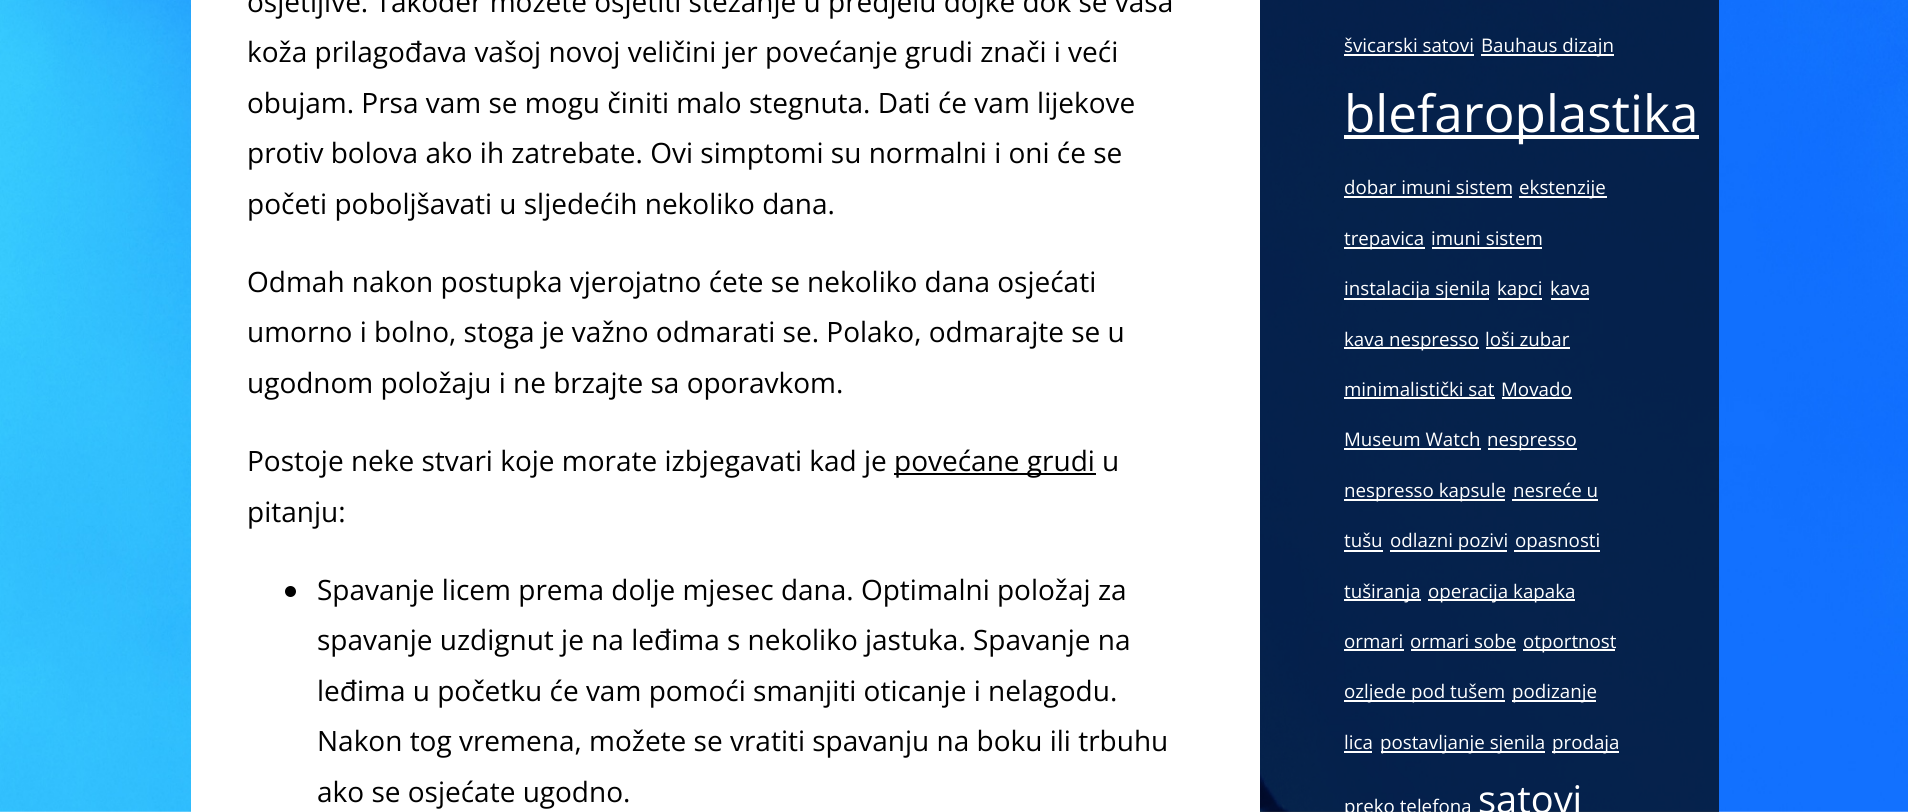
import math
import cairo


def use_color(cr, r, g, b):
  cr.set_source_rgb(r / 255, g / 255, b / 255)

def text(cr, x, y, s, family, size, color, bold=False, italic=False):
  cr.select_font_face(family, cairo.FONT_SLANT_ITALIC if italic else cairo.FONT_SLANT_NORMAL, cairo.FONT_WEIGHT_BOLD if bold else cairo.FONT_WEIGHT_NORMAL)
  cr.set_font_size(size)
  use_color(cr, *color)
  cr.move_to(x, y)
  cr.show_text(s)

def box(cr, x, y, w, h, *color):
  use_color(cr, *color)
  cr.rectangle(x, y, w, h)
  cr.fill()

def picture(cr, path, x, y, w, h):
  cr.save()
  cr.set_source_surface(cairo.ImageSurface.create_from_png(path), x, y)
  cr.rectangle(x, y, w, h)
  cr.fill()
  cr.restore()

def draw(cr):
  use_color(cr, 255, 255, 255)
  cr.paint()
  picture(cr, "img_01.png", 0, 0, 1908, 812)
  box(cr, 191, 0, 1069, 812, 255, 255, 255)
  box(cr, 894, 473, 202, 2, 0, 0, 0)
  cr.arc(290.5, 591.5, 5.5, 0, 2 * math.pi)
  cr.fill()
  cr.set_source_rgba(0, 0, 0, 0.7)
  cr.rectangle(1260, 0, 459, 812)
  cr.fill()
  box(cr, 1344, 54, 130, 2, 255, 255, 255)
  box(cr, 1481, 54, 133, 2, 255, 255, 255)
  box(cr, 1344, 135, 355, 4, 255, 255, 255)
  box(cr, 1344, 196, 168, 2, 255, 255, 255)
  box(cr, 1519, 196, 88, 2, 255, 255, 255)
  box(cr, 1344, 247, 81, 2, 255, 255, 255)
  box(cr, 1432, 247, 110, 2, 255, 255, 255)
  box(cr, 1344, 298, 145, 2, 255, 255, 255)
  box(cr, 1498, 298, 44, 2, 255, 255, 255)
  box(cr, 1551, 298, 38, 2, 255, 255, 255)
  box(cr, 1344, 347, 135, 2, 255, 255, 255)
  box(cr, 1486, 347, 84, 2, 255, 255, 255)
  box(cr, 1344, 397, 151, 2, 255, 255, 255)
  box(cr, 1502, 397, 70, 2, 255, 255, 255)
  box(cr, 1344, 448, 137, 2, 255, 255, 255)
  box(cr, 1488, 448, 89, 2, 255, 255, 255)
  box(cr, 1344, 499, 161, 2, 255, 255, 255)
  box(cr, 1512, 499, 86, 2, 255, 255, 255)
  box(cr, 1344, 550, 39, 2, 255, 255, 255)
  box(cr, 1390, 550, 117, 2, 255, 255, 255)
  box(cr, 1514, 550, 86, 2, 255, 255, 255)
  box(cr, 1344, 599, 77, 2, 255, 255, 255)
  box(cr, 1428, 599, 147, 2, 255, 255, 255)
  box(cr, 1344, 649, 60, 2, 255, 255, 255)
  box(cr, 1411, 649, 105, 2, 255, 255, 255)
  box(cr, 1523, 649, 92, 2, 255, 255, 255)
  box(cr, 1344, 700, 161, 2, 255, 255, 255)
  box(cr, 1512, 700, 84, 2, 255, 255, 255)
  box(cr, 1344, 751, 28, 2, 255, 255, 255)
  box(cr, 1381, 751, 164, 2, 255, 255, 255)
  box(cr, 1552, 751, 67, 2, 255, 255, 255)
  text(cr, 247, 12, "osjetljive. Također možete osjetiti stezanje u predjelu dojke dok se vaša", "Open Sans", 28, (0, 0, 0))
  text(cr, 247, 62, "koža prilagođava vašoj novoj veličini jer povećanje grudi znači i veći", "Open Sans", 28, (0, 0, 0))
  text(cr, 247, 113, "obujam. Prsa vam se mogu činiti malo stegnuta. Dati će vam lijekove", "Open Sans", 28, (0, 0, 0))
  text(cr, 247, 163, "protiv bolova ako ih zatrebate. Ovi simptomi su normalni i oni će se", "Open Sans", 28, (0, 0, 0))
  text(cr, 247, 214, "početi poboljšavati u sljedećih nekoliko dana.", "Open Sans", 28, (0, 0, 0))
  text(cr, 247, 292, "Odmah nakon postupka vjerojatno ćete se nekoliko dana osjećati", "Open Sans", 28, (0, 0, 0))
  text(cr, 247, 342, "umorno i bolno, stoga je važno odmarati se. Polako, odmarajte se u", "Open Sans", 28, (0, 0, 0))
  text(cr, 247, 393, "ugodnom položaju i ne brzajte sa oporavkom.", "Open Sans", 28, (0, 0, 0))
  text(cr, 247, 471, "Postoje neke stvari koje morate izbjegavati kad je", "Open Sans", 28, (0, 0, 0))
  text(cr, 894, 471, "povećane grudi u", "Open Sans", 28, (0, 0, 0))
  text(cr, 247, 522, "pitanju:", "Open Sans", 28, (0, 0, 0))
  text(cr, 317, 600, "Spavanje licem prema dolje mjesec dana. Optimalni položaj za", "Open Sans", 28, (0, 0, 0))
  text(cr, 317, 650, "spavanje uzdignut je na leđima s nekoliko jastuka. Spavanje na", "Open Sans", 28, (0, 0, 0))
  text(cr, 317, 701, "leđima u početku će vam pomoći smanjiti oticanje i nelagodu.", "Open Sans", 28, (0, 0, 0))
  text(cr, 317, 751, "Nakon tog vremena, možete se vratiti spavanju na boku ili trbuhu", "Open Sans", 28, (0, 0, 0))
  text(cr, 317, 802, "ako se osjećate ugodno.", "Open Sans", 28, (0, 0, 0))
  text(cr, 1344, 52, "švicarski satovi", "Open Sans", 18.75, (255, 255, 255))
  text(cr, 1481, 52, "Bauhaus dizajn", "Open Sans", 18.75, (255, 255, 255))
  text(cr, 1344, 132, "blefaroplastika", "Open Sans", 51.25, (255, 255, 255))
  text(cr, 1344, 194, "dobar imuni sistem", "Open Sans", 18.75, (255, 255, 255))
  text(cr, 1519, 194, "ekstenzije", "Open Sans", 18.75, (255, 255, 255))
  text(cr, 1344, 245, "trepavica", "Open Sans", 18.75, (255, 255, 255))
  text(cr, 1431, 245, "imuni sistem", "Open Sans", 18.75, (255, 255, 255))
  text(cr, 1344, 295, "instalacija sjenila", "Open Sans", 18.75, (255, 255, 255))
  text(cr, 1497, 295, "kapci", "Open Sans", 18.75, (255, 255, 255))
  text(cr, 1550, 295, "kava", "Open Sans", 18.75, (255, 255, 255))
  text(cr, 1344, 346, "kava nespresso", "Open Sans", 18.75, (255, 255, 255))
  text(cr, 1485, 346, "loši zubar", "Open Sans", 18.75, (255, 255, 255))
  text(cr, 1344, 396, "minimalistički sat", "Open Sans", 18.75, (255, 255, 255))
  text(cr, 1501, 396, "Movado", "Open Sans", 18.75, (255, 255, 255))
  text(cr, 1344, 446, "Museum Watch", "Open Sans", 18.75, (255, 255, 255))
  text(cr, 1487, 446, "nespresso", "Open Sans", 18.75, (255, 255, 255))
  text(cr, 1344, 497, "nespresso kapsule", "Open Sans", 18.75, (255, 255, 255))
  text(cr, 1513, 497, "nesreće u", "Open Sans", 18.75, (255, 255, 255))
  text(cr, 1344, 547, "tušu", "Open Sans", 18.75, (255, 255, 255))
  text(cr, 1390, 547, "odlazni pozivi", "Open Sans", 18.75, (255, 255, 255))
  text(cr, 1515, 547, "opasnosti", "Open Sans", 18.75, (255, 255, 255))
  text(cr, 1344, 598, "tuširanja", "Open Sans", 18.75, (255, 255, 255))
  text(cr, 1428, 598, "operacija kapaka", "Open Sans", 18.75, (255, 255, 255))
  text(cr, 1344, 648, "ormari", "Open Sans", 18.75, (255, 255, 255))
  text(cr, 1410, 648, "ormari sobe", "Open Sans", 18.75, (255, 255, 255))
  text(cr, 1523, 648, "otportnost", "Open Sans", 18.75, (255, 255, 255))
  text(cr, 1344, 698, "ozljede pod tušem", "Open Sans", 18.75, (255, 255, 255))
  text(cr, 1512, 698, "podizanje", "Open Sans", 18.75, (255, 255, 255))
  text(cr, 1344, 749, "lica", "Open Sans", 18.75, (255, 255, 255))
  text(cr, 1380, 749, "postavljanje sjenila", "Open Sans", 18.75, (255, 255, 255))
  text(cr, 1552, 749, "prodaja", "Open Sans", 18.75, (255, 255, 255))
  text(cr, 1344, 813, "preko telefona", "Open Sans", 18.75, (255, 255, 255))
  text(cr, 1478, 813, "satovi", "Open Sans", 38, (255, 255, 255))


surface = cairo.ImageSurface(cairo.FORMAT_RGB24, 1908, 812)
cr = cairo.Context(surface)
options = cairo.FontOptions()
options.set_hint_metrics(cairo.HINT_METRICS_OFF)
options.set_hint_style(cairo.HINT_STYLE_NONE)
cr.set_font_options(options)
cr.set_miter_limit(4)
draw(cr)
surface.write_to_png("out.png")
